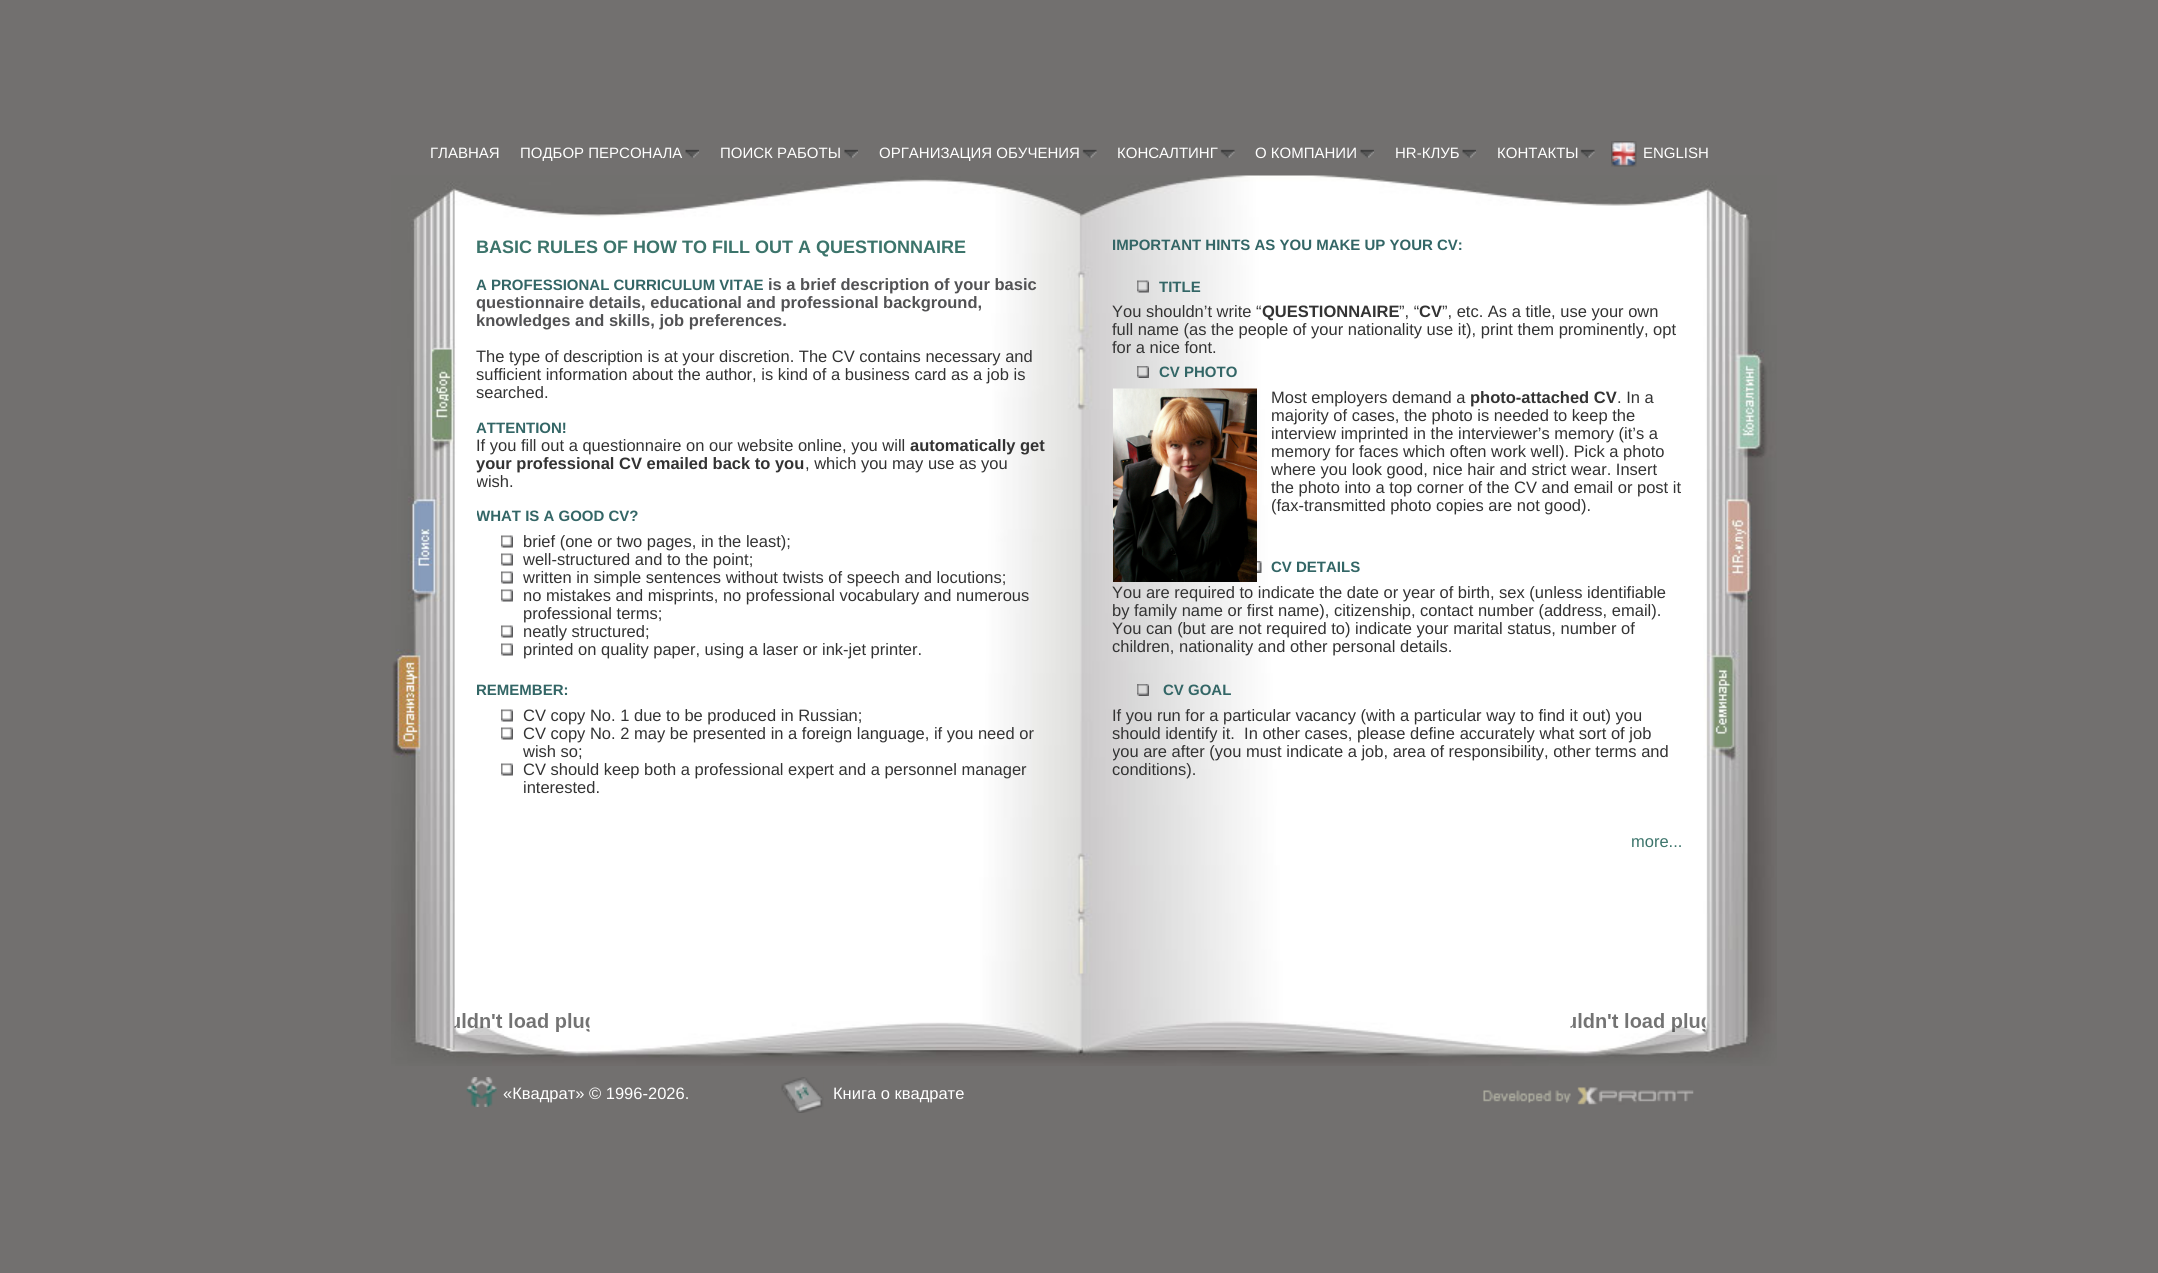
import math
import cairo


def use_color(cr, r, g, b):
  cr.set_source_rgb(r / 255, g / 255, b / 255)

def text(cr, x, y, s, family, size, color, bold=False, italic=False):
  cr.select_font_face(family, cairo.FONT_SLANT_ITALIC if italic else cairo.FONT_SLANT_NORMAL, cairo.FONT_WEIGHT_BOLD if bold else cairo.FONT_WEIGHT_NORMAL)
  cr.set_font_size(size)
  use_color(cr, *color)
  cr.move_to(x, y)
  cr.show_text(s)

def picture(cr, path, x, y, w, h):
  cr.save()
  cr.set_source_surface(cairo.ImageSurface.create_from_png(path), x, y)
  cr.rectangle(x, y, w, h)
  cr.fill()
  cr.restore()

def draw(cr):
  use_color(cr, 114, 112, 111)
  cr.paint()
  picture(cr, "img_01.png", 685, 149, 14, 9)
  picture(cr, "img_02.png", 844, 149, 14, 9)
  picture(cr, "img_03.png", 1082, 149, 15, 9)
  picture(cr, "img_03.png", 1220, 149, 15, 9)
  picture(cr, "img_01.png", 1360, 149, 14, 9)
  picture(cr, "img_01.png", 1462, 149, 14, 9)
  picture(cr, "img_04.png", 1580, 149, 15, 9)
  picture(cr, "img_05.png", 1611, 141, 26, 26)
  picture(cr, "img_06.png", 391, 175, 1386, 891)
  picture(cr, "img_07.png", 501, 535, 12, 13)
  picture(cr, "img_07.png", 501, 553, 12, 13)
  picture(cr, "img_07.png", 501, 571, 12, 13)
  picture(cr, "img_07.png", 501, 589, 12, 13)
  picture(cr, "img_07.png", 501, 625, 12, 13)
  picture(cr, "img_07.png", 501, 643, 12, 13)
  picture(cr, "img_07.png", 501, 709, 12, 13)
  picture(cr, "img_07.png", 501, 727, 12, 13)
  picture(cr, "img_07.png", 501, 763, 12, 13)
  picture(cr, "img_08.png", 1137, 280, 12, 13)
  picture(cr, "img_09.png", 1137, 366, 12, 12)
  picture(cr, "img_10.png", 1113, 388, 144, 194)
  picture(cr, "img_11.png", 1257, 561, 5, 12)
  picture(cr, "img_12.png", 1137, 684, 12, 12)
  picture(cr, "img_13.png", 454, 1008, 136, 27)
  picture(cr, "img_14.png", 1570, 1013, 136, 22)
  picture(cr, "img_15.png", 466, 1077, 31, 30)
  picture(cr, "img_16.png", 781, 1077, 43, 36)
  picture(cr, "img_17.png", 1483, 1087, 211, 18)
  text(cr, 430, 158, "ГЛАВНАЯ", "Liberation Sans", 15, (255, 255, 255))
  text(cr, 520, 158, "ПОДБОР ПЕРСОНАЛА", "Liberation Sans", 15, (255, 255, 255))
  text(cr, 720, 158, "ПОИСК РАБОТЫ", "Liberation Sans", 15, (255, 255, 255))
  text(cr, 879, 158, "ОРГАНИЗАЦИЯ ОБУЧЕНИЯ", "Liberation Sans", 15, (255, 255, 255))
  text(cr, 1117, 158, "КОНСАЛТИНГ", "Liberation Sans", 15, (255, 255, 255))
  text(cr, 1255, 158, "О КОМПАНИИ", "Liberation Sans", 15, (255, 255, 255))
  text(cr, 1395, 158, "HR-КЛУБ", "Liberation Sans", 15, (255, 255, 255))
  text(cr, 1497, 158, "КОНТАКТЫ", "Liberation Sans", 15, (255, 255, 255))
  text(cr, 1643, 158, "ENGLISH", "Liberation Sans", 15, (255, 255, 255))
  text(cr, 476, 253, "BASIC RULES OF HOW TO FILL OUT A QUESTIONNAIRE", "Liberation Sans", 18, (60, 116, 107), bold=True)
  text(cr, 476, 290, "A PROFESSIONAL CURRICULUM VITAE", "Liberation Sans", 15, (51, 102, 102), bold=True)
  text(cr, 768, 290, "is a brief description of your basic", "Liberation Sans", 16.5, (82, 82, 84), bold=True)
  text(cr, 476, 308, "questionnaire details, educational and professional background,", "Liberation Sans", 16.5, (82, 82, 84), bold=True)
  text(cr, 476, 326, "knowledges and skills, job preferences.", "Liberation Sans", 16.5, (82, 82, 84), bold=True)
  text(cr, 476, 362, "The type of description is at your discretion. The CV contains necessary and", "Liberation Sans", 16.5, (51, 51, 51))
  text(cr, 476, 380, "sufficient information about the author, is kind of a business card as a job is", "Liberation Sans", 16.5, (51, 51, 51))
  text(cr, 476, 398, "searched.", "Liberation Sans", 16.5, (51, 51, 51))
  text(cr, 476, 433, "ATTENTION!", "Liberation Sans", 15, (51, 102, 102), bold=True)
  text(cr, 476, 451, "If you fill out a questionnaire on our website online, you will", "Liberation Sans", 16.5, (51, 51, 51))
  text(cr, 910, 451, "automatically get", "Liberation Sans", 16.5, (51, 51, 51), bold=True)
  text(cr, 476, 469, "your professional CV emailed back to you", "Liberation Sans", 16.5, (51, 51, 51), bold=True)
  text(cr, 805, 469, ", which you may use as you", "Liberation Sans", 16.5, (51, 51, 51))
  cr.save()
  cr.rectangle(477, 237, 570, 758)
  cr.clip()
  text(cr, 476, 487, "wish.", "Liberation Sans", 16.5, (51, 51, 51))
  text(cr, 476, 521, "WHAT IS A GOOD CV?", "Liberation Sans", 15, (51, 102, 102), bold=True)
  cr.restore()
  text(cr, 523, 547, "brief (one or two pages, in the least);", "Liberation Sans", 16.5, (51, 51, 51))
  text(cr, 523, 565, "well-structured and to the point;", "Liberation Sans", 16.5, (51, 51, 51))
  text(cr, 523, 583, "written in simple sentences without twists of speech and locutions;", "Liberation Sans", 16.5, (51, 51, 51))
  text(cr, 523, 601, "no mistakes and misprints, no professional vocabulary and numerous", "Liberation Sans", 16.5, (51, 51, 51))
  text(cr, 523, 619, "professional terms;", "Liberation Sans", 16.5, (51, 51, 51))
  text(cr, 523, 637, "neatly structured;", "Liberation Sans", 16.5, (51, 51, 51))
  text(cr, 523, 655, "printed on quality paper, using a laser or ink-jet printer.", "Liberation Sans", 16.5, (51, 51, 51))
  text(cr, 476, 695, "REMEMBER:", "Liberation Sans", 15, (51, 102, 102), bold=True)
  text(cr, 523, 721, "CV copy No. 1 due to be produced in Russian;", "Liberation Sans", 16.5, (51, 51, 51))
  text(cr, 523, 739, "CV copy No. 2 may be presented in a foreign language, if you need or", "Liberation Sans", 16.5, (51, 51, 51))
  text(cr, 523, 757, "wish so;", "Liberation Sans", 16.5, (51, 51, 51))
  text(cr, 523, 775, "CV should keep both a professional expert and a personnel manager", "Liberation Sans", 16.5, (51, 51, 51))
  text(cr, 523, 793, "interested.", "Liberation Sans", 16.5, (51, 51, 51))
  text(cr, 1112, 250, "IMPORTANT HINTS AS YOU MAKE UP YOUR CV:", "Liberation Sans", 15, (51, 102, 102), bold=True)
  text(cr, 1159, 292, "TITLE", "Liberation Sans", 15, (51, 102, 102), bold=True)
  text(cr, 1112, 317, "You shouldn’t write “", "Liberation Sans", 16.5, (51, 51, 51))
  text(cr, 1262, 317, "QUESTIONNAIRE", "Liberation Sans", 16.5, (51, 51, 51), bold=True)
  text(cr, 1399, 317, "”, “", "Liberation Sans", 16.5, (51, 51, 51))
  text(cr, 1419, 317, "CV", "Liberation Sans", 16.5, (51, 51, 51), bold=True)
  text(cr, 1442, 317, "”, etc. As a title, use your own", "Liberation Sans", 16.5, (51, 51, 51))
  text(cr, 1112, 335, "full name (as the people of your nationality use it), print them prominently, opt", "Liberation Sans", 16.5, (51, 51, 51))
  text(cr, 1112, 353, "for a nice font.", "Liberation Sans", 16.5, (51, 51, 51))
  text(cr, 1159, 377, "CV PHOTO", "Liberation Sans", 15, (51, 102, 102), bold=True)
  text(cr, 1271, 403, "Most employers demand a", "Liberation Sans", 16.5, (51, 51, 51))
  text(cr, 1470, 403, "photo-attached CV", "Liberation Sans", 16.5, (51, 51, 51), bold=True)
  text(cr, 1617, 403, ". In a", "Liberation Sans", 16.5, (51, 51, 51))
  text(cr, 1271, 421, "majority of cases, the photo is needed to keep the", "Liberation Sans", 16.5, (51, 51, 51))
  text(cr, 1271, 439, "interview imprinted in the interviewer’s memory (it’s a", "Liberation Sans", 16.5, (51, 51, 51))
  text(cr, 1271, 457, "memory for faces which often work well). Pick a photo", "Liberation Sans", 16.5, (51, 51, 51))
  text(cr, 1271, 475, "where you look good, nice hair and strict wear. Insert", "Liberation Sans", 16.5, (51, 51, 51))
  text(cr, 1271, 493, "the photo into a top corner of the CV and email or post it", "Liberation Sans", 16.5, (51, 51, 51))
  text(cr, 1271, 511, "(fax-transmitted photo copies are not good).", "Liberation Sans", 16.5, (51, 51, 51))
  text(cr, 1271, 572, "CV DETAILS", "Liberation Sans", 15, (51, 102, 102), bold=True)
  text(cr, 1112, 598, "You are required to indicate the date or year of birth, sex (unless identifiable", "Liberation Sans", 16.5, (51, 51, 51))
  text(cr, 1112, 616, "by family name or first name), citizenship, contact number (address, email).", "Liberation Sans", 16.5, (51, 51, 51))
  text(cr, 1112, 634, "You can (but are not required to) indicate your marital status, number of", "Liberation Sans", 16.5, (51, 51, 51))
  text(cr, 1112, 652, "children, nationality and other personal details.", "Liberation Sans", 16.5, (51, 51, 51))
  text(cr, 1163, 695, "CV GOAL", "Liberation Sans", 15, (51, 102, 102), bold=True)
  text(cr, 1112, 721, "If you run for a particular vacancy (with a particular way to find it out) you", "Liberation Sans", 16.5, (51, 51, 51))
  text(cr, 1112, 739, "should identify it.  In other cases, please define accurately what sort of job", "Liberation Sans", 16.5, (51, 51, 51))
  cr.save()
  cr.rectangle(1113, 237, 570, 758)
  cr.clip()
  text(cr, 1112, 757, "you are after (you must indicate a job, area of responsibility, other terms and", "Liberation Sans", 16.5, (51, 51, 51))
  cr.restore()
  text(cr, 1112, 775, "conditions).", "Liberation Sans", 16.5, (51, 51, 51))
  text(cr, 1631, 847, "more...", "Liberation Sans", 16.5, (60, 116, 107))
  text(cr, 503, 1099, "«Квадрат» © 1996-2026.", "Liberation Sans", 16.5, (255, 255, 255))
  text(cr, 833, 1099, "Книга о квадрате", "Liberation Sans", 16.5, (255, 255, 255))


surface = cairo.ImageSurface(cairo.FORMAT_RGB24, 2158, 1273)
cr = cairo.Context(surface)
options = cairo.FontOptions()
options.set_hint_metrics(cairo.HINT_METRICS_OFF)
options.set_hint_style(cairo.HINT_STYLE_NONE)
cr.set_font_options(options)
cr.set_miter_limit(4)
draw(cr)
surface.write_to_png("out.png")
